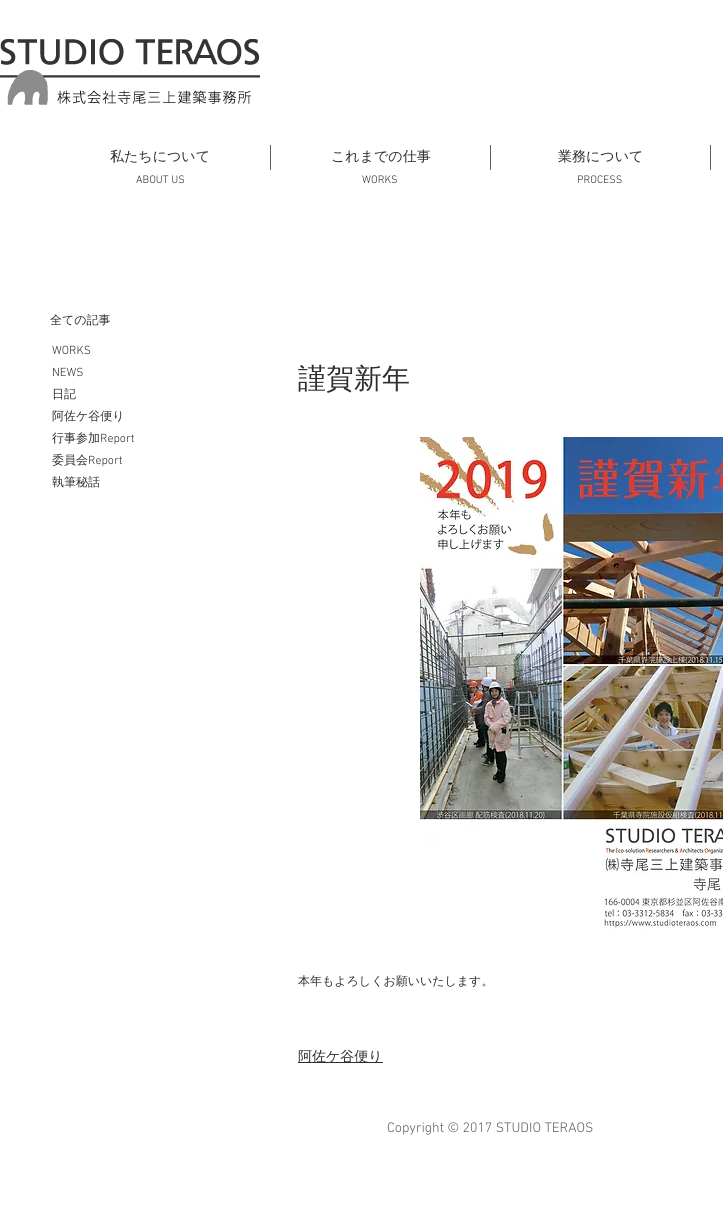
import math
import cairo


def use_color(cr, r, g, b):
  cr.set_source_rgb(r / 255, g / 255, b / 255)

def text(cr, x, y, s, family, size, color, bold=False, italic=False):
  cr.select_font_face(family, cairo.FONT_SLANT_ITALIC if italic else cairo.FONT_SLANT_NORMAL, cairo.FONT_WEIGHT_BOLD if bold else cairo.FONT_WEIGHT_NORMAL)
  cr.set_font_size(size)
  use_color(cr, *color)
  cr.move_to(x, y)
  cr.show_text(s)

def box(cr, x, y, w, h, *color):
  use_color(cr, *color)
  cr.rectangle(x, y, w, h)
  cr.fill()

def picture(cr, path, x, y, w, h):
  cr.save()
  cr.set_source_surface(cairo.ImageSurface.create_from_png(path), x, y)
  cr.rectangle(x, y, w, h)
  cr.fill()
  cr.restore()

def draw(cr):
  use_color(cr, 255, 255, 255)
  cr.paint()
  picture(cr, "img_01.png", 0, 39, 260, 66)
  box(cr, 270, 145, 1, 25, 96, 94, 94)
  box(cr, 490, 145, 1, 25, 96, 94, 94)
  box(cr, 710, 145, 1, 25, 96, 94, 94)
  picture(cr, "img_02.png", 420, 437, 303, 492)
  box(cr, 298, 1062, 85, 1, 47, 46, 46)
  text(cr, 110, 161, "私たちについて", "WenQuanYi Zen Hei Medium", 14, (47, 46, 46))
  text(cr, 331, 161, "これまでの仕事", "WenQuanYi Zen Hei Medium", 14, (47, 46, 46))
  text(cr, 558, 161, "業務について", "WenQuanYi Zen Hei Medium", 14, (47, 46, 46))
  text(cr, 136, 183, "ABOUT US", "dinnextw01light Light", 11, (47, 46, 46))
  text(cr, 362, 183, "WORKS", "dinnextw01light Light", 11, (47, 46, 46))
  text(cr, 577, 183, "PROCESS", "dinnextw01light Light", 11, (47, 46, 46))
  text(cr, 50, 324, "全ての記事", "WenQuanYi Zen Hei Medium", 12, (47, 46, 46))
  text(cr, 52, 354, "WORKS", "dinnextw01light Light", 12, (47, 46, 46))
  text(cr, 52, 376, "NEWS", "dinnextw01light Light", 12, (47, 46, 46))
  text(cr, 52, 398, "日記", "WenQuanYi Zen Hei Medium", 12, (47, 46, 46))
  text(cr, 52, 420, "阿佐ケ谷便り", "WenQuanYi Zen Hei Medium", 12, (47, 46, 46))
  text(cr, 52, 442, "行事参加", "WenQuanYi Zen Hei Medium", 12, (47, 46, 46))
  text(cr, 100, 442, "Report", "dinnextw01light Light", 12, (47, 46, 46))
  text(cr, 52, 464, "委員会", "WenQuanYi Zen Hei Medium", 12, (47, 46, 46))
  text(cr, 88, 464, "Report", "dinnextw01light Light", 12, (47, 46, 46))
  text(cr, 52, 486, "執筆秘話", "WenQuanYi Zen Hei Medium", 12, (47, 46, 46))
  text(cr, 298, 388, "謹賀新年", "WenQuanYi Zen Hei Medium", 28, (47, 46, 46))
  text(cr, 298, 985, "本年もよろしくお願いいたします。", "WenQuanYi Zen Hei Medium", 12, (47, 46, 46))
  text(cr, 298, 1061, "阿佐ケ谷便り", "WenQuanYi Zen Hei Medium", 14, (47, 46, 46))
  text(cr, 387, 1132, "Copyright © 2017 STUDIO TERAOS", "dinnextw01light Light", 14, (96, 94, 94))


surface = cairo.ImageSurface(cairo.FORMAT_RGB24, 723, 1206)
cr = cairo.Context(surface)
options = cairo.FontOptions()
options.set_hint_metrics(cairo.HINT_METRICS_OFF)
options.set_hint_style(cairo.HINT_STYLE_NONE)
cr.set_font_options(options)
cr.set_miter_limit(4)
draw(cr)
surface.write_to_png("out.png")
